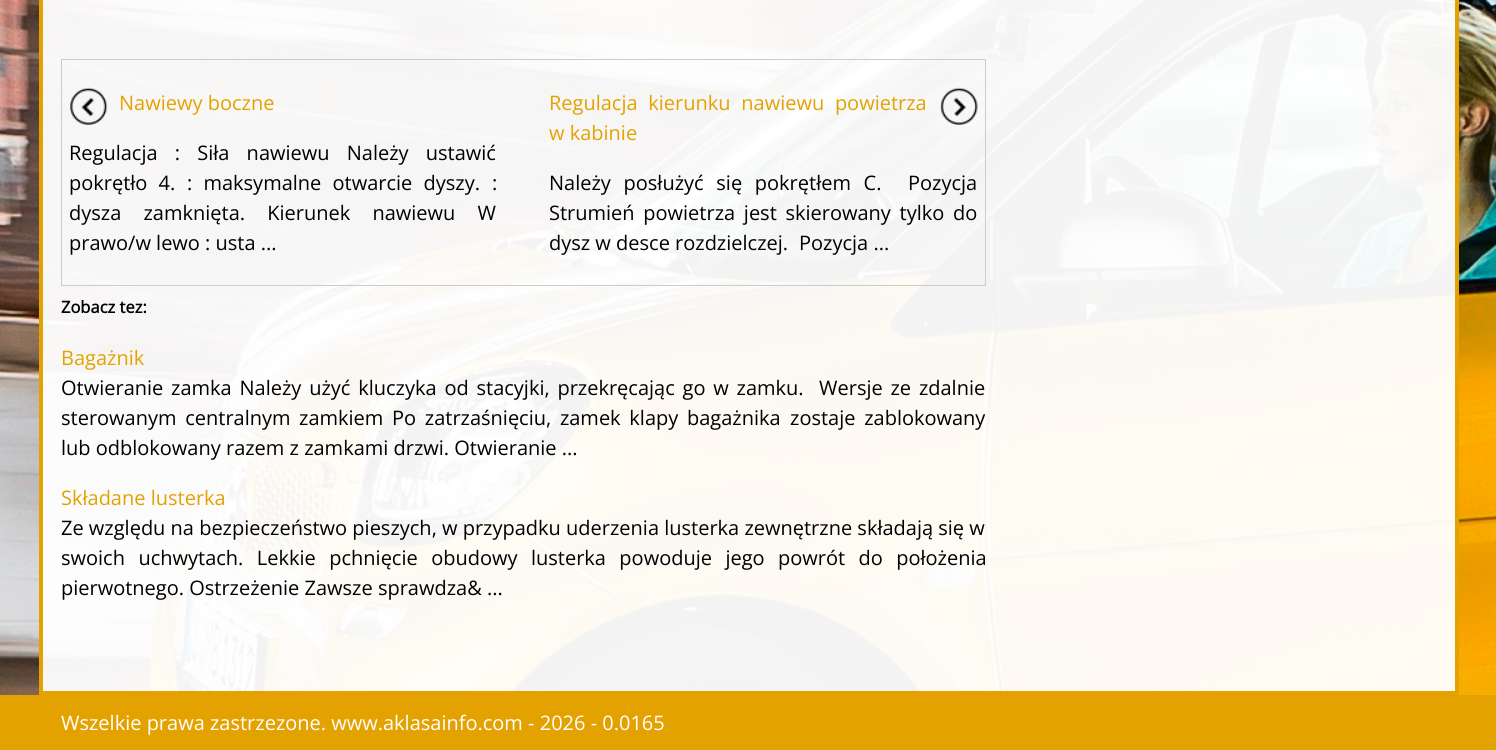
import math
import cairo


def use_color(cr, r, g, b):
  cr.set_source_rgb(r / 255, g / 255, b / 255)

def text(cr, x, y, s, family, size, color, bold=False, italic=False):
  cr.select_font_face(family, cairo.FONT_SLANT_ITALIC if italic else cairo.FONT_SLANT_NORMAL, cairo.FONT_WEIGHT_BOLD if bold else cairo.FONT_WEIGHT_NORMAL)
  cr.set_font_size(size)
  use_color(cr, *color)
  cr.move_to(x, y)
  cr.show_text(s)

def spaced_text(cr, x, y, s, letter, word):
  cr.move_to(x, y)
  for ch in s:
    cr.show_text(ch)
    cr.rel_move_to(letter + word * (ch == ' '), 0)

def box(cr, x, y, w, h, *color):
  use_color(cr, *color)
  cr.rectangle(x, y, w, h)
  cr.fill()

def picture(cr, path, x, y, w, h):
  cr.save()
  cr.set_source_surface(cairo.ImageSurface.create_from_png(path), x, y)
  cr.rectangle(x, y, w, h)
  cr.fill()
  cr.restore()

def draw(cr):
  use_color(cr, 255, 255, 255)
  cr.paint()
  picture(cr, "img_01.png", 0, 0, 1496, 695)
  cr.set_source_rgba(1, 1, 1, 0.95)
  cr.rectangle(41, -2, 1416, 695)
  cr.fill_preserve()
  use_color(cr, 227, 162, 0)
  cr.set_line_width(4)
  cr.stroke()
  cr.rectangle(61.5, 59.5, 924, 226)
  use_color(cr, 204, 204, 204)
  cr.set_line_width(1)
  cr.stroke()
  picture(cr, "img_02.png", 70, 87, 38, 38)
  picture(cr, "img_03.png", 940, 87, 38, 38)
  box(cr, 0, 695, 1496, 55, 227, 162, 0)
  text(cr, 119, 110, "Nawiewy boczne", "Open Sans", 20, (227, 162, 0))
  use_color(cr, 0, 0, 0)
  spaced_text(cr, 69, 160, "Regulacja : Siła nawiewu Należy ustawić", 0, 12)
  spaced_text(cr, 69, 190, "pokrętło 4.", 0, 6)
  spaced_text(cr, 187, 190, ": maksymalne otwarcie dyszy.", 0, 6)
  text(cr, 492, 190, ":", "Open Sans", 20, (0, 0, 0))
  spaced_text(cr, 69, 220, "dysza zamknięta. Kierunek nawiewu W", 0, 17)
  text(cr, 69, 250, "prawo/w lewo : usta ...", "Open Sans", 20, (0, 0, 0))
  use_color(cr, 227, 162, 0)
  spaced_text(cr, 549, 110, "Regulacja kierunku nawiewu powietrza", 0, 5.5)
  text(cr, 549, 140, "w kabinie", "Open Sans", 20, (227, 162, 0))
  use_color(cr, 0, 0, 0)
  spaced_text(cr, 549, 190, "Należy posłużyć się pokrętłem C.", 0, 7.5)
  text(cr, 908, 190, "Pozycja", "Open Sans", 20, (0, 0, 0))
  spaced_text(cr, 549, 220, "Strumień powietrza jest skierowany tylko do", 0, 3.5)
  text(cr, 549, 250, "dysz w desce rozdzielczej.", "Open Sans", 20, (0, 0, 0))
  text(cr, 799, 250, "Pozycja ...", "Open Sans", 20, (0, 0, 0))
  text(cr, 61, 313, "Zobacz tez:", "Open Sans", 16.5, (0, 0, 0), bold=True)
  text(cr, 61, 365, "Bagażnik", "Open Sans", 20, (227, 162, 0))
  use_color(cr, 0, 0, 0)
  spaced_text(cr, 61, 395, "Otwieranie zamka Należy użyć kluczyka od stacyjki, przekręcając go w zamku.", 0, 2.6)
  spaced_text(cr, 819, 395, "Wersje ze zdalnie", 0, 2.6)
  spaced_text(cr, 61, 425, "sterowanym centralnym", 0, 3.5)
  text(cr, 299, 425, "zamkiem", "Open Sans", 20, (0, 0, 0))
  spaced_text(cr, 392, 425, "Po zatrzaśnięciu, zamek klapy bagażnika", 0, 3.5)
  spaced_text(cr, 790, 425, "zostaje zablokowany", 0, 3.5)
  text(cr, 61, 455, "lub odblokowany razem z zamkami drzwi. Otwieranie ...", "Open Sans", 20, (0, 0, 0))
  text(cr, 61, 505, "Składane lusterka", "Open Sans", 20, (227, 162, 0))
  text(cr, 61, 535, "Ze względu na bezpieczeństwo pieszych, w przypadku uderzenia lusterka zewnętrzne składają się w", "Open Sans", 20, (0, 0, 0))
  spaced_text(cr, 61, 565, "swoich uchwytach. Lekkie pchnięcie obudowy lusterka powoduje jego powrót do położenia", 0, 8.25)
  text(cr, 61, 595, "pierwotnego. Ostrzeżenie Zawsze sprawdza& ...", "Open Sans", 20, (0, 0, 0))
  text(cr, 61, 730, "Wszelkie prawa zastrzezone. www.aklasainfo.com - 2026 - 0.0165", "Open Sans", 20, (255, 255, 255))


surface = cairo.ImageSurface(cairo.FORMAT_RGB24, 1496, 750)
cr = cairo.Context(surface)
options = cairo.FontOptions()
options.set_hint_metrics(cairo.HINT_METRICS_OFF)
options.set_hint_style(cairo.HINT_STYLE_NONE)
cr.set_font_options(options)
cr.set_miter_limit(4)
draw(cr)
surface.write_to_png("out.png")
